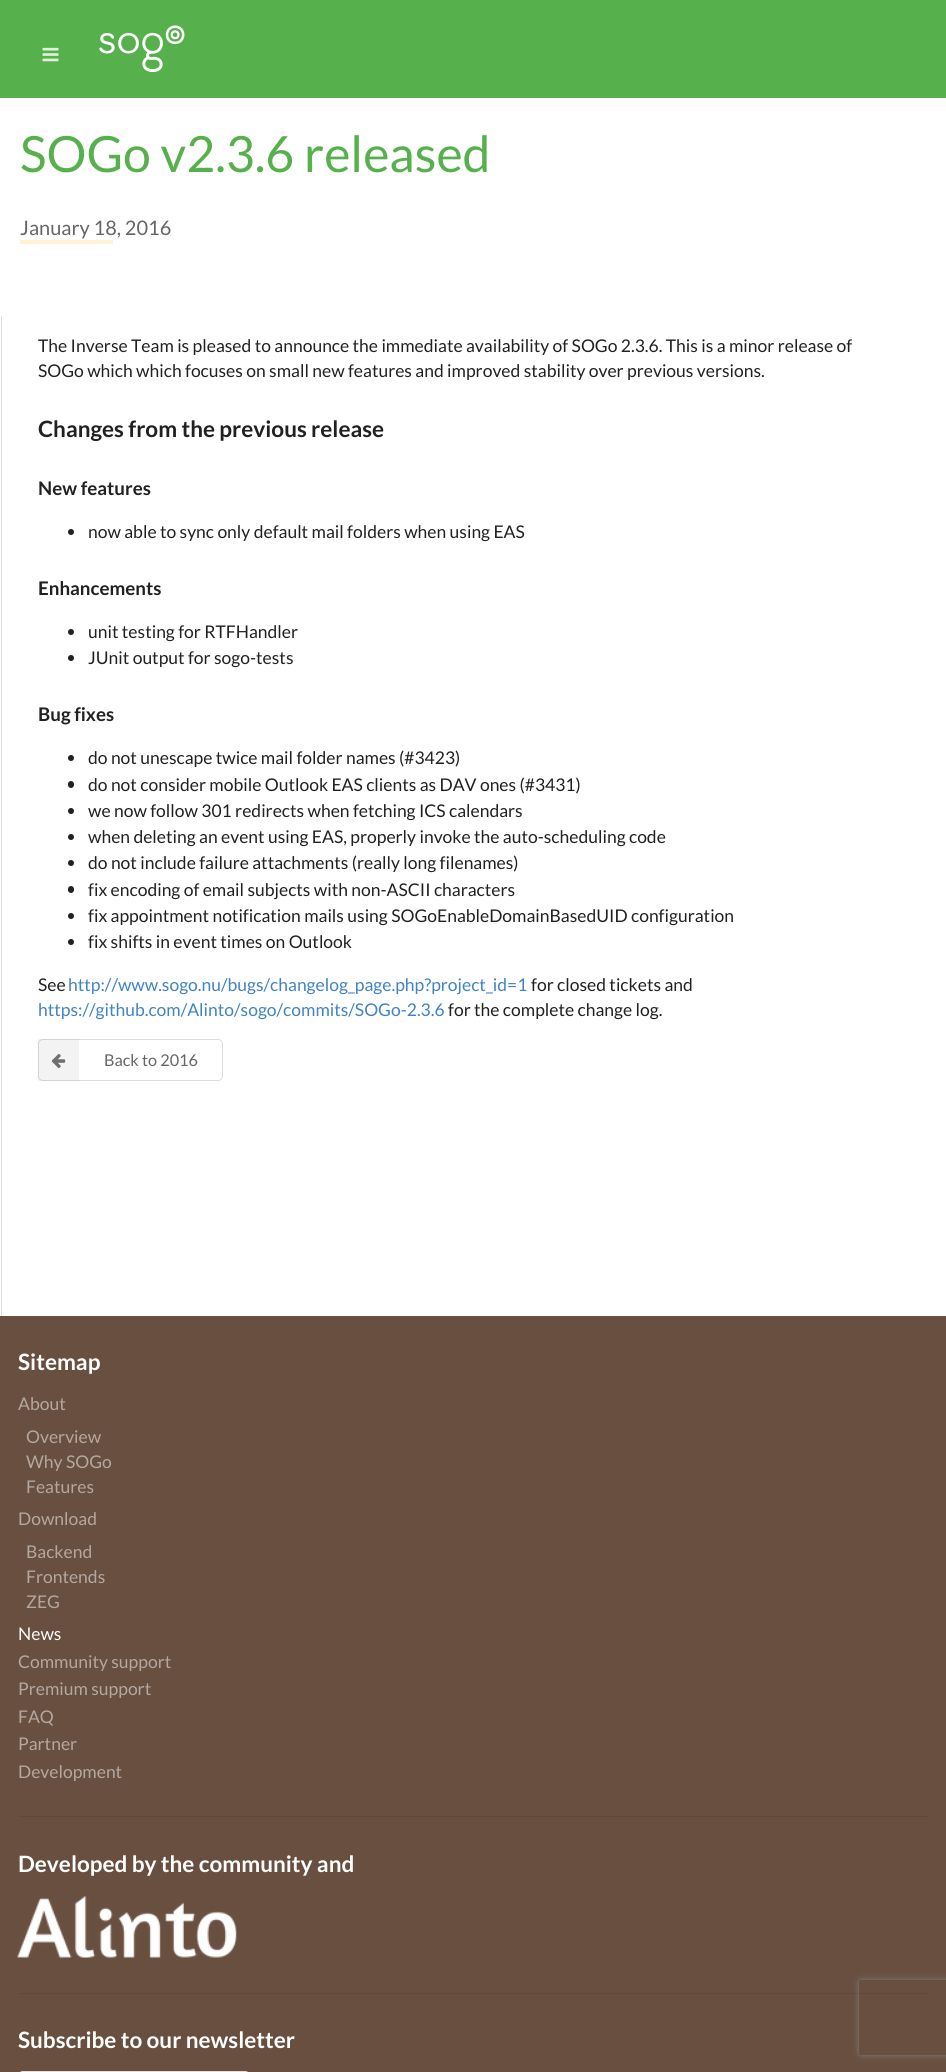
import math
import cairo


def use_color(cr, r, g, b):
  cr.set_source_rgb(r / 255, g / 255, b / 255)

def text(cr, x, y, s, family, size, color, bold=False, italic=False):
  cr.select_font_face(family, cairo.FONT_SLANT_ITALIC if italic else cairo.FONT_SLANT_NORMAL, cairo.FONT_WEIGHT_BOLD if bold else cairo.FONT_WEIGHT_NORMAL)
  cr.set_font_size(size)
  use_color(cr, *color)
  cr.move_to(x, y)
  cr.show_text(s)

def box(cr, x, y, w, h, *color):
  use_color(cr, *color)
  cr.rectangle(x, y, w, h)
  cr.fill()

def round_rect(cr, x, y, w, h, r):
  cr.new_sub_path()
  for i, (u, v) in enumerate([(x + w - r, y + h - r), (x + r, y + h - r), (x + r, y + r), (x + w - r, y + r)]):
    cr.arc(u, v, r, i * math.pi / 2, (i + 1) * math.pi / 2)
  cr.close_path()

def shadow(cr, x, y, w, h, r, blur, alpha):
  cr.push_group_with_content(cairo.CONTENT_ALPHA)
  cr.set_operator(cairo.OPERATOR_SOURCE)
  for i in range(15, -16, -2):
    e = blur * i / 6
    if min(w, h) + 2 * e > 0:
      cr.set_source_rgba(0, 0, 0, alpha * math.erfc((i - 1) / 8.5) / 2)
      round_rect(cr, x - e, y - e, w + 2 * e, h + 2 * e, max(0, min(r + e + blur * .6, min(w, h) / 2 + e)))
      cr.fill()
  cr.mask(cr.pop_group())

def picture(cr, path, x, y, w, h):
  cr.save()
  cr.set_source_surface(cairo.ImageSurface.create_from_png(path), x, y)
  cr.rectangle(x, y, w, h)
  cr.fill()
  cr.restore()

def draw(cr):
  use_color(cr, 255, 255, 255)
  cr.paint()
  box(cr, 0, 0, 946, 98, 86, 176, 76)
  picture(cr, "img_01.png", 42, 47, 17, 15)
  picture(cr, "img_02.png", 99, 25, 86, 47)
  box(cr, 20, 240, 93, 4, 255, 242, 212)
  box(cr, 1, 316, 1, 1000, 222, 222, 222)
  use_color(cr, 33, 33, 33)
  cr.arc(71, 532, 3, 0, 2 * math.pi)
  cr.fill()
  cr.arc(71, 632, 3, 0, 2 * math.pi)
  cr.fill()
  cr.arc(71, 658, 3, 0, 2 * math.pi)
  cr.fill()
  cr.arc(71, 758, 3, 0, 2 * math.pi)
  cr.fill()
  round_rect(cr, 68, 781, 6, 7, 3)
  cr.fill()
  cr.arc(71, 811, 3, 0, 2 * math.pi)
  cr.fill()
  cr.arc(71, 837, 3, 0, 2 * math.pi)
  cr.fill()
  cr.arc(71, 863, 3, 0, 2 * math.pi)
  cr.fill()
  round_rect(cr, 68, 886, 6, 7, 3)
  cr.fill()
  cr.arc(71, 916, 3, 0, 2 * math.pi)
  cr.fill()
  cr.arc(71, 942, 3, 0, 2 * math.pi)
  cr.fill()
  round_rect(cr, 38.5, 1039.5, 184, 41, 4.5)
  use_color(cr, 222, 222, 222)
  cr.set_line_width(1)
  cr.stroke()
  cr.set_source_rgba(0, 0, 0, 0.05)
  cr.rectangle(38, 1039, 41, 42)
  cr.fill()
  picture(cr, "img_03.png", 51, 1054, 15, 14)
  box(cr, 0, 1316, 946, 756, 104, 79, 64)
  box(cr, 18, 1816, 911, 1, 94, 73, 60)
  picture(cr, "img_04.png", 17, 1896, 220, 62)
  box(cr, 18, 1993, 911, 1, 94, 73, 60)
  cr.save()
  cr.set_fill_rule(cairo.FILL_RULE_EVEN_ODD)
  cr.new_path()
  cr.move_to(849, 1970)
  cr.line_to(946, 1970)
  cr.line_to(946, 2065)
  cr.line_to(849, 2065)
  cr.close_path()
  cr.move_to(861.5, 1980)
  cr.line_to(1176.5, 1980)
  cr.curve_to(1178, 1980, 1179, 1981, 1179, 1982.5)
  cr.line_to(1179, 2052.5)
  cr.curve_to(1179, 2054, 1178, 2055, 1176.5, 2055)
  cr.line_to(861.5, 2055)
  cr.curve_to(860, 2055, 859, 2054, 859, 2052.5)
  cr.line_to(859, 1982.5)
  cr.curve_to(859, 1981, 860, 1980, 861.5, 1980)
  cr.close_path()
  cr.clip()
  use_color(cr, 128, 128, 128)
  shadow(cr, 859, 1980, 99, 75, 2.5, 3, 1)
  cr.restore()
  use_color(cr, 255, 255, 255)
  round_rect(cr, 18, 2071, 232, 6, 5)
  cr.fill()
  round_rect(cr, 18.5, 2071.5, 231, 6, 4.5)
  cr.set_source_rgba(0.133, 0.141, 0.149, 0.15)
  cr.stroke()
  text(cr, 20, 172, "SOGo v2.3.6 released", "Lato", 50, (86, 176, 76))
  text(cr, 20, 235, "January 18, 2016", "Lato", 20, (102, 102, 102))
  text(cr, 38, 352, "The Inverse Team is pleased to announce the immediate availability of SOGo 2.3.6. This is a minor release of", "Lato", 17.5, (33, 33, 33))
  text(cr, 38, 377, "SOGo which which focuses on small new features and improved stability over previous versions.", "Lato", 17.5, (33, 33, 33))
  text(cr, 38, 437, "Changes from the previous release", "Lato", 22.5, (33, 33, 33), bold=True)
  text(cr, 38, 495, "New features", "Lato", 18.75, (33, 33, 33), bold=True)
  text(cr, 88, 538, "now able to sync only default mail folders when using EAS", "Lato", 17.5, (33, 33, 33))
  text(cr, 38, 595, "Enhancements", "Lato", 18.75, (33, 33, 33), bold=True)
  text(cr, 88, 638, "unit testing for RTFHandler", "Lato", 17.5, (33, 33, 33))
  text(cr, 88, 664, "JUnit output for sogo-tests", "Lato", 17.5, (33, 33, 33))
  text(cr, 38, 721, "Bug fixes", "Lato", 18.75, (33, 33, 33), bold=True)
  text(cr, 88, 764, "do not unescape twice mail folder names (#3423)", "Lato", 17.5, (33, 33, 33))
  text(cr, 88, 791, "do not consider mobile Outlook EAS clients as DAV ones (#3431)", "Lato", 17.5, (33, 33, 33))
  text(cr, 88, 817, "we now follow 301 redirects when fetching ICS calendars", "Lato", 17.5, (33, 33, 33))
  text(cr, 88, 843, "when deleting an event using EAS, properly invoke the auto-scheduling code", "Lato", 17.5, (33, 33, 33))
  text(cr, 88, 869, "do not include failure attachments (really long filenames)", "Lato", 17.5, (33, 33, 33))
  text(cr, 88, 896, "fix encoding of email subjects with non-ASCII characters", "Lato", 17.5, (33, 33, 33))
  text(cr, 88, 922, "fix appointment notification mails using SOGoEnableDomainBasedUID configuration", "Lato", 17.5, (33, 33, 33))
  text(cr, 88, 948, "fix shifts in event times on Outlook", "Lato", 17.5, (33, 33, 33))
  text(cr, 38, 991, "See", "Lato", 17.5, (33, 33, 33))
  text(cr, 68, 991, "http://www.sogo.nu/bugs/changelog_page.php?project_id=1", "Lato", 17.5, (65, 131, 196))
  text(cr, 531, 991, "for closed tickets and", "Lato", 17.5, (33, 33, 33))
  text(cr, 38, 1016, "https://github.com/Alinto/sogo/commits/SOGo-2.3.6", "Lato", 17.5, (65, 131, 196))
  text(cr, 448, 1016, "for the complete change log.", "Lato", 17.5, (33, 33, 33))
  text(cr, 104, 1066, "Back to 2016", "Lato", 16.25, (102, 102, 102))
  text(cr, 18, 1370, "Sitemap", "Lato", 22.5, (255, 255, 255), bold=True)
  text(cr, 18, 1410, "About", "Lato", 17.5, (180, 167, 160))
  text(cr, 26, 1443, "Overview", "Lato", 17.5, (180, 167, 160))
  text(cr, 26, 1468, "Why SOGo", "Lato", 17.5, (180, 167, 160))
  text(cr, 26, 1493, "Features", "Lato", 17.5, (180, 167, 160))
  text(cr, 18, 1525, "Download", "Lato", 17.5, (180, 167, 160))
  text(cr, 26, 1558, "Backend", "Lato", 17.5, (180, 167, 160))
  text(cr, 26, 1583, "Frontends", "Lato", 17.5, (180, 167, 160))
  text(cr, 26, 1608, "ZEG", "Lato", 17.5, (180, 167, 160))
  text(cr, 18, 1640, "News", "Lato", 17.5, (255, 255, 255))
  text(cr, 18, 1668, "Community support", "Lato", 17.5, (180, 167, 160))
  text(cr, 18, 1695, "Premium support", "Lato", 17.5, (180, 167, 160))
  text(cr, 18, 1723, "FAQ", "Lato", 17.5, (180, 167, 160))
  text(cr, 18, 1750, "Partner", "Lato", 17.5, (180, 167, 160))
  text(cr, 18, 1778, "Development", "Lato", 17.5, (180, 167, 160))
  text(cr, 18, 1872, "Developed by the community and", "Lato", 22.5, (255, 255, 255), bold=True)
  text(cr, 18, 2048, "Subscribe to our newsletter", "Lato", 22.5, (255, 255, 255), bold=True)


surface = cairo.ImageSurface(cairo.FORMAT_RGB24, 946, 2072)
cr = cairo.Context(surface)
options = cairo.FontOptions()
options.set_hint_metrics(cairo.HINT_METRICS_OFF)
options.set_hint_style(cairo.HINT_STYLE_NONE)
cr.set_font_options(options)
cr.set_miter_limit(4)
draw(cr)
surface.write_to_png("out.png")
